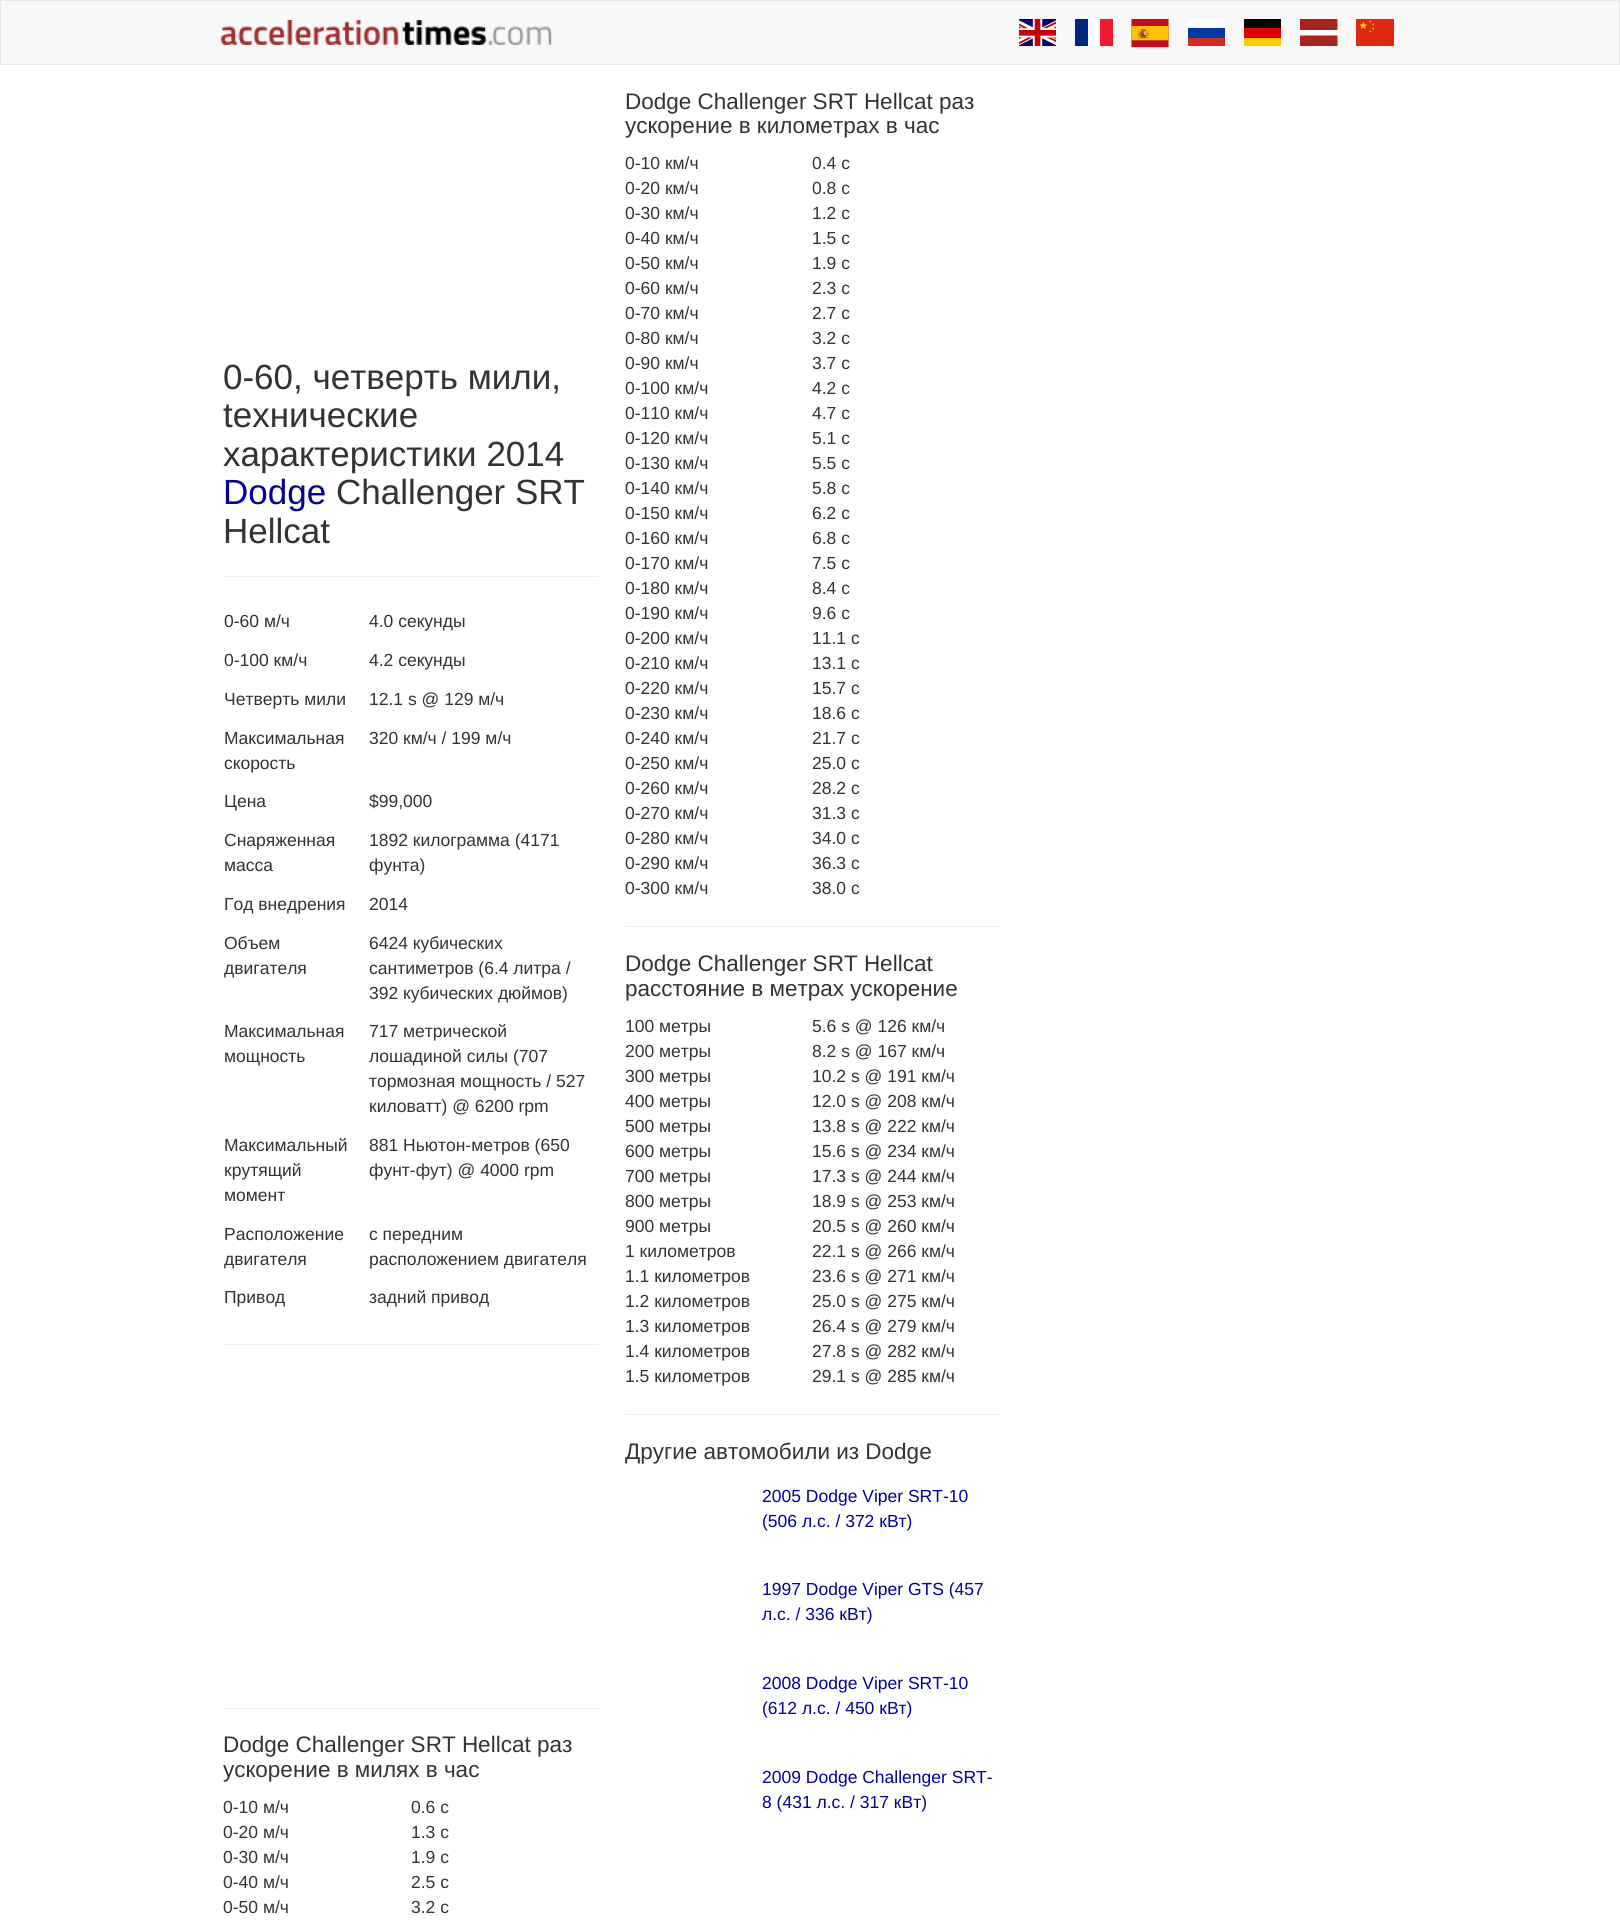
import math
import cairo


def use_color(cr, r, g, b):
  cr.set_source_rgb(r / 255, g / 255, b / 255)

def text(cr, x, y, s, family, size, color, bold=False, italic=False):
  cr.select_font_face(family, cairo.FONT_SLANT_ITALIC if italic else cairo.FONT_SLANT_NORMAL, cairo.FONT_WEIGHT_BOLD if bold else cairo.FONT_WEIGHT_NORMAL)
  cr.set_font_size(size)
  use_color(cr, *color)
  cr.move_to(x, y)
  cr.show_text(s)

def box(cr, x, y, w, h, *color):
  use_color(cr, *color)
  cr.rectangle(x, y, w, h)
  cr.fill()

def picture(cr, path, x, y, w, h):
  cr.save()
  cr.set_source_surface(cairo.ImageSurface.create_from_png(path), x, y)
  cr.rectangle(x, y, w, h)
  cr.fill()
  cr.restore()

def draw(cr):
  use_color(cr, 255, 255, 255)
  cr.paint()
  use_color(cr, 248, 248, 248)
  cr.rectangle(0.5, 0.5, 1619, 64)
  cr.fill_preserve()
  use_color(cr, 231, 231, 231)
  cr.set_line_width(1)
  cr.stroke()
  picture(cr, "img_01.png", 221, 20, 331, 25)
  picture(cr, "img_02.png", 1019, 19, 37, 27)
  box(cr, 1088, 19, 12, 27, 255, 255, 255)
  box(cr, 1075, 19, 13, 27, 0, 38, 127)
  box(cr, 1100, 19, 13, 27, 243, 24, 48)
  picture(cr, "img_03.png", 1131, 19, 38, 29)
  box(cr, 1188, 19, 37, 9, 255, 255, 255)
  box(cr, 1188, 28, 37, 10, 0, 57, 166)
  box(cr, 1188, 38, 37, 8, 213, 43, 30)
  box(cr, 1244, 38, 37, 8, 255, 206, 0)
  box(cr, 1244, 19, 37, 9, 0, 0, 0)
  box(cr, 1244, 28, 37, 10, 221, 0, 0)
  box(cr, 1300, 19, 38, 27, 255, 255, 255)
  cr.save()
  cr.rectangle(1300, 19, 38, 27)
  cr.clip()
  use_color(cr, 171, 35, 29)
  cr.set_fill_rule(cairo.FILL_RULE_EVEN_ODD)
  cr.new_path()
  cr.move_to(1300, 19)
  cr.line_to(1337.5, 19)
  cr.line_to(1337.5, 30)
  cr.line_to(1300, 30)
  cr.close_path()
  cr.move_to(1300, 35.5)
  cr.line_to(1337.5, 35.5)
  cr.line_to(1337.5, 47)
  cr.line_to(1300, 47)
  cr.close_path()
  cr.fill()
  cr.restore()
  picture(cr, "img_04.png", 1356, 19, 38, 27)
  box(cr, 224, 576, 375, 1, 238, 238, 238)
  box(cr, 224, 1344, 375, 1, 238, 238, 238)
  box(cr, 224, 1708, 375, 1, 238, 238, 238)
  box(cr, 625, 926, 375, 1, 238, 238, 238)
  box(cr, 625, 1414, 375, 1, 238, 238, 238)
  text(cr, 223, 389, "0-60, четверть мили,", "Liberation Sans", 35, (51, 51, 51))
  text(cr, 223, 427, "tехнические", "Liberation Sans", 35, (51, 51, 51))
  text(cr, 223, 466, "характеристики 2014", "Liberation Sans", 35, (51, 51, 51))
  text(cr, 223, 504, "Dodge", "Liberation Sans", 35, (5, 0, 150))
  text(cr, 336, 504, "Challenger SRT", "Liberation Sans", 35, (51, 51, 51))
  text(cr, 223, 543, "Hellcat", "Liberation Sans", 35, (51, 51, 51))
  text(cr, 224, 627, "0-60 м/ч", "Liberation Sans", 17.5, (51, 51, 51))
  text(cr, 369, 627, "4.0 секунды", "Liberation Sans", 17.5, (51, 51, 51))
  text(cr, 224, 666, "0-100 км/ч", "Liberation Sans", 17.5, (51, 51, 51))
  text(cr, 369, 666, "4.2 секунды", "Liberation Sans", 17.5, (51, 51, 51))
  text(cr, 224, 705, "Четверть мили", "Liberation Sans", 17.5, (51, 51, 51))
  text(cr, 369, 705, "12.1 s @ 129 м/ч", "Liberation Sans", 17.5, (51, 51, 51))
  text(cr, 224, 744, "Mаксимальная", "Liberation Sans", 17.5, (51, 51, 51))
  text(cr, 224, 769, "скорость", "Liberation Sans", 17.5, (51, 51, 51))
  text(cr, 369, 744, "320 км/ч / 199 м/ч", "Liberation Sans", 17.5, (51, 51, 51))
  text(cr, 224, 807, "Цена", "Liberation Sans", 17.5, (51, 51, 51))
  text(cr, 369, 807, "$99,000", "Liberation Sans", 17.5, (51, 51, 51))
  text(cr, 224, 846, "Cнаряженная", "Liberation Sans", 17.5, (51, 51, 51))
  text(cr, 224, 871, "масса", "Liberation Sans", 17.5, (51, 51, 51))
  text(cr, 369, 846, "1892 килограмма (4171", "Liberation Sans", 17.5, (51, 51, 51))
  text(cr, 369, 871, "фунта)", "Liberation Sans", 17.5, (51, 51, 51))
  text(cr, 224, 910, "Год внедрения", "Liberation Sans", 17.5, (51, 51, 51))
  text(cr, 369, 910, "2014", "Liberation Sans", 17.5, (51, 51, 51))
  text(cr, 224, 949, "Объем", "Liberation Sans", 17.5, (51, 51, 51))
  text(cr, 224, 974, "двигателя", "Liberation Sans", 17.5, (51, 51, 51))
  text(cr, 369, 949, "6424 кубических", "Liberation Sans", 17.5, (51, 51, 51))
  text(cr, 369, 974, "сантиметров (6.4 литра /", "Liberation Sans", 17.5, (51, 51, 51))
  text(cr, 369, 999, "392 кубических дюймов)", "Liberation Sans", 17.5, (51, 51, 51))
  text(cr, 224, 1037, "Максимальная", "Liberation Sans", 17.5, (51, 51, 51))
  text(cr, 224, 1062, "мощность", "Liberation Sans", 17.5, (51, 51, 51))
  text(cr, 369, 1037, "717 метрической", "Liberation Sans", 17.5, (51, 51, 51))
  text(cr, 369, 1062, "лошадиной силы (707", "Liberation Sans", 17.5, (51, 51, 51))
  text(cr, 369, 1087, "тормозная мощность / 527", "Liberation Sans", 17.5, (51, 51, 51))
  text(cr, 369, 1112, "киловатт) @ 6200 rpm", "Liberation Sans", 17.5, (51, 51, 51))
  text(cr, 224, 1151, "Максимальный", "Liberation Sans", 17.5, (51, 51, 51))
  text(cr, 224, 1176, "крутящий", "Liberation Sans", 17.5, (51, 51, 51))
  text(cr, 224, 1201, "момент", "Liberation Sans", 17.5, (51, 51, 51))
  text(cr, 369, 1151, "881 Ньютон-метров (650", "Liberation Sans", 17.5, (51, 51, 51))
  text(cr, 369, 1176, "фунт-фут) @ 4000 rpm", "Liberation Sans", 17.5, (51, 51, 51))
  text(cr, 224, 1240, "Расположение", "Liberation Sans", 17.5, (51, 51, 51))
  text(cr, 224, 1265, "двигателя", "Liberation Sans", 17.5, (51, 51, 51))
  text(cr, 369, 1240, "с передним", "Liberation Sans", 17.5, (51, 51, 51))
  text(cr, 369, 1265, "расположением двигателя", "Liberation Sans", 17.5, (51, 51, 51))
  text(cr, 224, 1303, "Привод", "Liberation Sans", 17.5, (51, 51, 51))
  text(cr, 369, 1303, "задний привод", "Liberation Sans", 17.5, (51, 51, 51))
  text(cr, 223, 1752, "Dodge Challenger SRT Hellcat раз", "Liberation Sans", 22.5, (51, 51, 51))
  text(cr, 223, 1777, "ускорение в милях в час", "Liberation Sans", 22.5, (51, 51, 51))
  text(cr, 223, 1813, "0-10 м/ч", "Liberation Sans", 17.5, (51, 51, 51))
  text(cr, 411, 1813, "0.6 с", "Liberation Sans", 17.5, (51, 51, 51))
  text(cr, 223, 1838, "0-20 м/ч", "Liberation Sans", 17.5, (51, 51, 51))
  text(cr, 411, 1838, "1.3 с", "Liberation Sans", 17.5, (51, 51, 51))
  text(cr, 223, 1863, "0-30 м/ч", "Liberation Sans", 17.5, (51, 51, 51))
  text(cr, 411, 1863, "1.9 с", "Liberation Sans", 17.5, (51, 51, 51))
  text(cr, 223, 1888, "0-40 м/ч", "Liberation Sans", 17.5, (51, 51, 51))
  text(cr, 411, 1888, "2.5 с", "Liberation Sans", 17.5, (51, 51, 51))
  text(cr, 223, 1913, "0-50 м/ч", "Liberation Sans", 17.5, (51, 51, 51))
  text(cr, 411, 1913, "3.2 с", "Liberation Sans", 17.5, (51, 51, 51))
  text(cr, 625, 109, "Dodge Challenger SRT Hellcat раз", "Liberation Sans", 22.5, (51, 51, 51))
  text(cr, 625, 133, "ускорение в километрах в час", "Liberation Sans", 22.5, (51, 51, 51))
  text(cr, 625, 169, "0-10 км/ч", "Liberation Sans", 17.5, (51, 51, 51))
  text(cr, 812, 169, "0.4 с", "Liberation Sans", 17.5, (51, 51, 51))
  text(cr, 625, 194, "0-20 км/ч", "Liberation Sans", 17.5, (51, 51, 51))
  text(cr, 812, 194, "0.8 с", "Liberation Sans", 17.5, (51, 51, 51))
  text(cr, 625, 219, "0-30 км/ч", "Liberation Sans", 17.5, (51, 51, 51))
  text(cr, 812, 219, "1.2 с", "Liberation Sans", 17.5, (51, 51, 51))
  text(cr, 625, 244, "0-40 км/ч", "Liberation Sans", 17.5, (51, 51, 51))
  text(cr, 812, 244, "1.5 с", "Liberation Sans", 17.5, (51, 51, 51))
  text(cr, 625, 269, "0-50 км/ч", "Liberation Sans", 17.5, (51, 51, 51))
  text(cr, 812, 269, "1.9 с", "Liberation Sans", 17.5, (51, 51, 51))
  text(cr, 625, 294, "0-60 км/ч", "Liberation Sans", 17.5, (51, 51, 51))
  text(cr, 812, 294, "2.3 с", "Liberation Sans", 17.5, (51, 51, 51))
  text(cr, 625, 319, "0-70 км/ч", "Liberation Sans", 17.5, (51, 51, 51))
  text(cr, 812, 319, "2.7 с", "Liberation Sans", 17.5, (51, 51, 51))
  text(cr, 625, 344, "0-80 км/ч", "Liberation Sans", 17.5, (51, 51, 51))
  text(cr, 812, 344, "3.2 с", "Liberation Sans", 17.5, (51, 51, 51))
  text(cr, 625, 369, "0-90 км/ч", "Liberation Sans", 17.5, (51, 51, 51))
  text(cr, 812, 369, "3.7 с", "Liberation Sans", 17.5, (51, 51, 51))
  text(cr, 625, 394, "0-100 км/ч", "Liberation Sans", 17.5, (51, 51, 51))
  text(cr, 812, 394, "4.2 с", "Liberation Sans", 17.5, (51, 51, 51))
  text(cr, 625, 419, "0-110 км/ч", "Liberation Sans", 17.5, (51, 51, 51))
  text(cr, 812, 419, "4.7 с", "Liberation Sans", 17.5, (51, 51, 51))
  text(cr, 625, 444, "0-120 км/ч", "Liberation Sans", 17.5, (51, 51, 51))
  text(cr, 812, 444, "5.1 с", "Liberation Sans", 17.5, (51, 51, 51))
  text(cr, 625, 469, "0-130 км/ч", "Liberation Sans", 17.5, (51, 51, 51))
  text(cr, 812, 469, "5.5 с", "Liberation Sans", 17.5, (51, 51, 51))
  text(cr, 625, 494, "0-140 км/ч", "Liberation Sans", 17.5, (51, 51, 51))
  text(cr, 812, 494, "5.8 с", "Liberation Sans", 17.5, (51, 51, 51))
  text(cr, 625, 519, "0-150 км/ч", "Liberation Sans", 17.5, (51, 51, 51))
  text(cr, 812, 519, "6.2 с", "Liberation Sans", 17.5, (51, 51, 51))
  text(cr, 625, 544, "0-160 км/ч", "Liberation Sans", 17.5, (51, 51, 51))
  text(cr, 812, 544, "6.8 с", "Liberation Sans", 17.5, (51, 51, 51))
  text(cr, 625, 569, "0-170 км/ч", "Liberation Sans", 17.5, (51, 51, 51))
  text(cr, 812, 569, "7.5 с", "Liberation Sans", 17.5, (51, 51, 51))
  text(cr, 625, 594, "0-180 км/ч", "Liberation Sans", 17.5, (51, 51, 51))
  text(cr, 812, 594, "8.4 с", "Liberation Sans", 17.5, (51, 51, 51))
  text(cr, 625, 619, "0-190 км/ч", "Liberation Sans", 17.5, (51, 51, 51))
  text(cr, 812, 619, "9.6 с", "Liberation Sans", 17.5, (51, 51, 51))
  text(cr, 625, 644, "0-200 км/ч", "Liberation Sans", 17.5, (51, 51, 51))
  text(cr, 812, 644, "11.1 с", "Liberation Sans", 17.5, (51, 51, 51))
  text(cr, 625, 669, "0-210 км/ч", "Liberation Sans", 17.5, (51, 51, 51))
  text(cr, 812, 669, "13.1 с", "Liberation Sans", 17.5, (51, 51, 51))
  text(cr, 625, 694, "0-220 км/ч", "Liberation Sans", 17.5, (51, 51, 51))
  text(cr, 812, 694, "15.7 с", "Liberation Sans", 17.5, (51, 51, 51))
  text(cr, 625, 719, "0-230 км/ч", "Liberation Sans", 17.5, (51, 51, 51))
  text(cr, 812, 719, "18.6 с", "Liberation Sans", 17.5, (51, 51, 51))
  text(cr, 625, 744, "0-240 км/ч", "Liberation Sans", 17.5, (51, 51, 51))
  text(cr, 812, 744, "21.7 с", "Liberation Sans", 17.5, (51, 51, 51))
  text(cr, 625, 769, "0-250 км/ч", "Liberation Sans", 17.5, (51, 51, 51))
  text(cr, 812, 769, "25.0 с", "Liberation Sans", 17.5, (51, 51, 51))
  text(cr, 625, 794, "0-260 км/ч", "Liberation Sans", 17.5, (51, 51, 51))
  text(cr, 812, 794, "28.2 с", "Liberation Sans", 17.5, (51, 51, 51))
  text(cr, 625, 819, "0-270 км/ч", "Liberation Sans", 17.5, (51, 51, 51))
  text(cr, 812, 819, "31.3 с", "Liberation Sans", 17.5, (51, 51, 51))
  text(cr, 625, 844, "0-280 км/ч", "Liberation Sans", 17.5, (51, 51, 51))
  text(cr, 812, 844, "34.0 с", "Liberation Sans", 17.5, (51, 51, 51))
  text(cr, 625, 869, "0-290 км/ч", "Liberation Sans", 17.5, (51, 51, 51))
  text(cr, 812, 869, "36.3 с", "Liberation Sans", 17.5, (51, 51, 51))
  text(cr, 625, 894, "0-300 км/ч", "Liberation Sans", 17.5, (51, 51, 51))
  text(cr, 812, 894, "38.0 с", "Liberation Sans", 17.5, (51, 51, 51))
  text(cr, 625, 971, "Dodge Challenger SRT Hellcat", "Liberation Sans", 22.5, (51, 51, 51))
  text(cr, 625, 996, "расстояние в метрах ускорение", "Liberation Sans", 22.5, (51, 51, 51))
  text(cr, 625, 1032, "100 метры", "Liberation Sans", 17.5, (51, 51, 51))
  text(cr, 812, 1032, "5.6 s @ 126 км/ч", "Liberation Sans", 17.5, (51, 51, 51))
  text(cr, 625, 1057, "200 метры", "Liberation Sans", 17.5, (51, 51, 51))
  text(cr, 812, 1057, "8.2 s @ 167 км/ч", "Liberation Sans", 17.5, (51, 51, 51))
  text(cr, 625, 1082, "300 метры", "Liberation Sans", 17.5, (51, 51, 51))
  text(cr, 812, 1082, "10.2 s @ 191 км/ч", "Liberation Sans", 17.5, (51, 51, 51))
  text(cr, 625, 1107, "400 метры", "Liberation Sans", 17.5, (51, 51, 51))
  text(cr, 812, 1107, "12.0 s @ 208 км/ч", "Liberation Sans", 17.5, (51, 51, 51))
  text(cr, 625, 1132, "500 метры", "Liberation Sans", 17.5, (51, 51, 51))
  text(cr, 812, 1132, "13.8 s @ 222 км/ч", "Liberation Sans", 17.5, (51, 51, 51))
  text(cr, 625, 1157, "600 метры", "Liberation Sans", 17.5, (51, 51, 51))
  text(cr, 812, 1157, "15.6 s @ 234 км/ч", "Liberation Sans", 17.5, (51, 51, 51))
  text(cr, 625, 1182, "700 метры", "Liberation Sans", 17.5, (51, 51, 51))
  text(cr, 812, 1182, "17.3 s @ 244 км/ч", "Liberation Sans", 17.5, (51, 51, 51))
  text(cr, 625, 1207, "800 метры", "Liberation Sans", 17.5, (51, 51, 51))
  text(cr, 812, 1207, "18.9 s @ 253 км/ч", "Liberation Sans", 17.5, (51, 51, 51))
  text(cr, 625, 1232, "900 метры", "Liberation Sans", 17.5, (51, 51, 51))
  text(cr, 812, 1232, "20.5 s @ 260 км/ч", "Liberation Sans", 17.5, (51, 51, 51))
  text(cr, 625, 1257, "1 километров", "Liberation Sans", 17.5, (51, 51, 51))
  text(cr, 812, 1257, "22.1 s @ 266 км/ч", "Liberation Sans", 17.5, (51, 51, 51))
  text(cr, 625, 1282, "1.1 километров", "Liberation Sans", 17.5, (51, 51, 51))
  text(cr, 812, 1282, "23.6 s @ 271 км/ч", "Liberation Sans", 17.5, (51, 51, 51))
  text(cr, 625, 1307, "1.2 километров", "Liberation Sans", 17.5, (51, 51, 51))
  text(cr, 812, 1307, "25.0 s @ 275 км/ч", "Liberation Sans", 17.5, (51, 51, 51))
  text(cr, 625, 1332, "1.3 километров", "Liberation Sans", 17.5, (51, 51, 51))
  text(cr, 812, 1332, "26.4 s @ 279 км/ч", "Liberation Sans", 17.5, (51, 51, 51))
  text(cr, 625, 1357, "1.4 километров", "Liberation Sans", 17.5, (51, 51, 51))
  text(cr, 812, 1357, "27.8 s @ 282 км/ч", "Liberation Sans", 17.5, (51, 51, 51))
  text(cr, 625, 1382, "1.5 километров", "Liberation Sans", 17.5, (51, 51, 51))
  text(cr, 812, 1382, "29.1 s @ 285 км/ч", "Liberation Sans", 17.5, (51, 51, 51))
  text(cr, 625, 1459, "Другие автомобили из Dodge", "Liberation Sans", 22.5, (51, 51, 51))
  text(cr, 762, 1502, "2005 Dodge Viper SRT-10", "Liberation Sans", 17.5, (5, 0, 150))
  text(cr, 762, 1527, "(506 л.с. / 372 кВт)", "Liberation Sans", 17.5, (5, 0, 150))
  text(cr, 762, 1595, "1997 Dodge Viper GTS (457", "Liberation Sans", 17.5, (5, 0, 150))
  text(cr, 762, 1620, "л.с. / 336 кВт)", "Liberation Sans", 17.5, (5, 0, 150))
  text(cr, 762, 1689, "2008 Dodge Viper SRT-10", "Liberation Sans", 17.5, (5, 0, 150))
  text(cr, 762, 1714, "(612 л.с. / 450 кВт)", "Liberation Sans", 17.5, (5, 0, 150))
  text(cr, 762, 1783, "2009 Dodge Challenger SRT-", "Liberation Sans", 17.5, (5, 0, 150))
  text(cr, 762, 1808, "8 (431 л.с. / 317 кВт)", "Liberation Sans", 17.5, (5, 0, 150))


surface = cairo.ImageSurface(cairo.FORMAT_RGB24, 1620, 1931)
cr = cairo.Context(surface)
options = cairo.FontOptions()
options.set_hint_metrics(cairo.HINT_METRICS_OFF)
options.set_hint_style(cairo.HINT_STYLE_NONE)
cr.set_font_options(options)
cr.set_miter_limit(4)
draw(cr)
surface.write_to_png("out.png")
